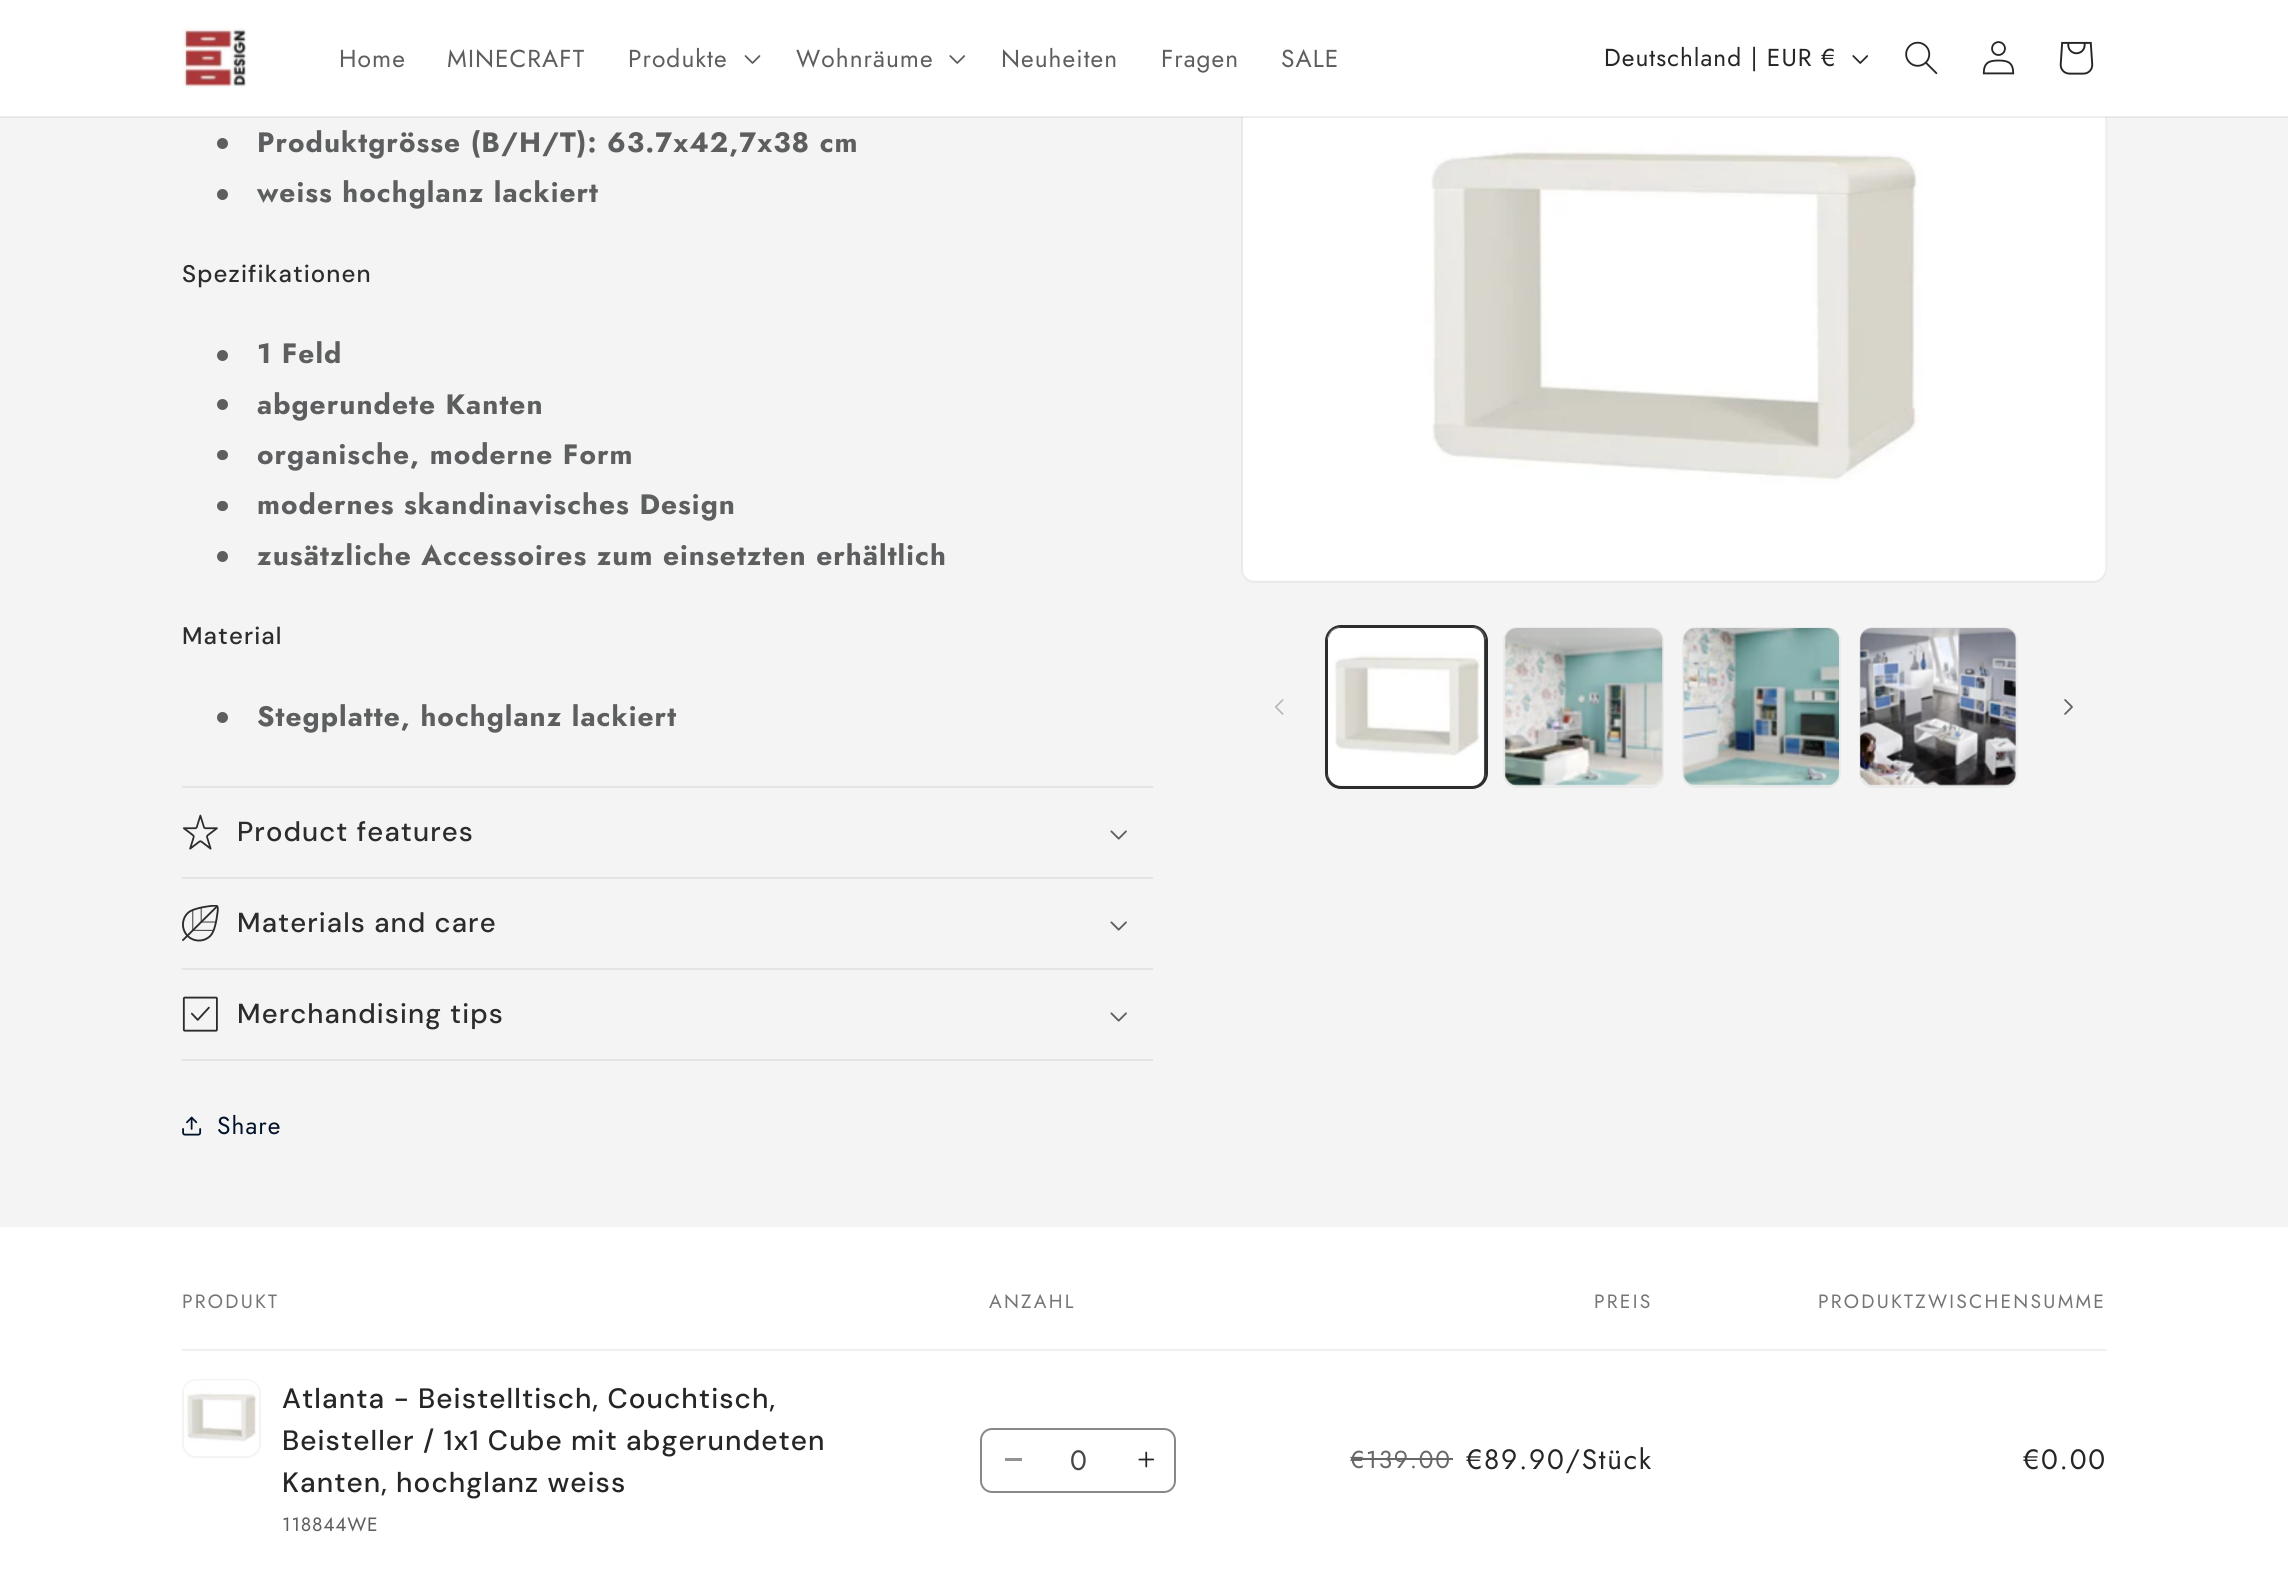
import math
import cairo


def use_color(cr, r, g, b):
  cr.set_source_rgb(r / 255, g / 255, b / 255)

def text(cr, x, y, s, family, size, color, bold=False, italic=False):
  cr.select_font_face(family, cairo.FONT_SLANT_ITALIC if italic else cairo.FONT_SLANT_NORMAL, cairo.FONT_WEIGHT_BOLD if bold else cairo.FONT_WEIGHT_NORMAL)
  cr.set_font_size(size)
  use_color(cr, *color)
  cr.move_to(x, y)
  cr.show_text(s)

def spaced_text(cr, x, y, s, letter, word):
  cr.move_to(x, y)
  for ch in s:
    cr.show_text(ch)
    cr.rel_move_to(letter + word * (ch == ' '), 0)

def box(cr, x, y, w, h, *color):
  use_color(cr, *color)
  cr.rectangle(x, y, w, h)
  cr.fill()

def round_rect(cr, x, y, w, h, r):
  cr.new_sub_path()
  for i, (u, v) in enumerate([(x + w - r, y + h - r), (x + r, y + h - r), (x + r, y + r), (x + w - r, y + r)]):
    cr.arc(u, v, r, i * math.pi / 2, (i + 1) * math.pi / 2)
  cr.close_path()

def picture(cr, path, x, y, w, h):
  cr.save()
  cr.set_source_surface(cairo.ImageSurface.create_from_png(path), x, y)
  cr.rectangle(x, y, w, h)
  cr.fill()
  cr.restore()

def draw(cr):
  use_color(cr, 244, 244, 244)
  cr.paint()
  round_rect(cr, 1242, 54, 864, 528, 13)
  use_color(cr, 234, 234, 234)
  cr.stroke()
  box(cr, 0, 0, 2288, 117, 255, 255, 255)
  picture(cr, "img_13.png", 1243, 117, 863, 464)
  cr.set_source_rgba(0.149, 0.149, 0.149, 0.08)
  cr.rectangle(0, 116, 2288, 2)
  cr.fill()
  picture(cr, "img_01.png", 182, 27, 65, 62)
  picture(cr, "img_02.png", 744, 55, 17, 9)
  picture(cr, "img_03.png", 949, 55, 16, 9)
  picture(cr, "img_04.png", 1852, 55, 16, 9)
  picture(cr, "img_05.png", 1905, 41, 33, 34)
  picture(cr, "img_06.png", 1982, 41, 33, 34)
  picture(cr, "img_07.png", 2059, 41, 35, 34)
  use_color(cr, 93, 94, 95)
  cr.arc(222.5, 143.5, 5.5, 0, 2 * math.pi)
  cr.fill()
  cr.arc(222.5, 194.5, 5.5, 0, 2 * math.pi)
  cr.fill()
  cr.arc(222.5, 355.5, 5.5, 0, 2 * math.pi)
  cr.fill()
  cr.arc(222.5, 404.5, 5.5, 0, 2 * math.pi)
  cr.fill()
  round_rect(cr, 217, 450, 11, 10, 5)
  cr.fill()
  round_rect(cr, 217, 501, 11, 10, 5)
  cr.fill()
  cr.arc(222.5, 556.5, 5.5, 0, 2 * math.pi)
  cr.fill()
  cr.arc(222.5, 717.5, 5.5, 0, 2 * math.pi)
  cr.fill()
  box(cr, 182, 786, 971, 2, 228, 228, 228)
  box(cr, 182, 877, 971, 2, 228, 228, 228)
  picture(cr, "img_08.png", 182, 814, 36, 36)
  picture(cr, "img_09.png", 1110, 830, 17, 10)
  box(cr, 182, 968, 971, 2, 228, 228, 228)
  picture(cr, "img_10.png", 182, 905, 37, 37)
  picture(cr, "img_09.png", 1110, 921, 17, 10)
  box(cr, 182, 1059, 971, 2, 228, 228, 228)
  picture(cr, "img_11.png", 182, 996, 36, 36)
  picture(cr, "img_09.png", 1110, 1012, 17, 10)
  picture(cr, "img_12.png", 182, 1116, 20, 20)
  picture(cr, "img_14.png", 1275, 699, 9, 16)
  round_rect(cr, 1326, 626, 161, 162, 15)
  use_color(cr, 43, 44, 45)
  cr.stroke()
  round_rect(cr, 1328, 628, 157, 159, 13)
  cr.stroke()
  picture(cr, "img_15.png", 1328, 628, 157, 158)
  round_rect(cr, 1504, 628, 159, 159, 13)
  use_color(cr, 234, 234, 234)
  cr.stroke()
  picture(cr, "img_16.png", 1504, 628, 159, 158)
  round_rect(cr, 1683, 628, 157, 159, 13)
  cr.stroke()
  picture(cr, "img_17.png", 1683, 628, 156, 158)
  round_rect(cr, 1860, 628, 157, 159, 13)
  cr.stroke()
  picture(cr, "img_18.png", 1860, 628, 156, 158)
  picture(cr, "img_19.png", 2064, 699, 9, 16)
  box(cr, 0, 1227, 2288, 347, 255, 255, 255)
  box(cr, 182, 1349, 1925, 2, 240, 240, 240)
  round_rect(cr, 183, 1380, 77, 77, 13)
  use_color(cr, 244, 244, 244)
  cr.stroke()
  picture(cr, "img_20.png", 184, 1380, 75, 62)
  box(cr, 1005, 1458, 17, 3, 147, 147, 147)
  picture(cr, "img_21.png", 1138, 1451, 17, 17)
  round_rect(cr, 981, 1429, 194, 63, 11)
  use_color(cr, 136, 136, 136)
  cr.stroke()
  box(cr, 1351, 1458, 102, 2, 103, 103, 103)
  cr.select_font_face("Jost")
  cr.set_font_size(24.5)
  use_color(cr, 93, 94, 95)
  spaced_text(cr, 339, 67, "Home", 1.05, 0)
  spaced_text(cr, 447, 67, "MINECRAFT", 1.05, 0)
  spaced_text(cr, 628, 67, "Produkte", 1.05, 0)
  spaced_text(cr, 796, 67, "Wohnräume", 1.05, 0)
  spaced_text(cr, 1001, 67, "Neuheiten", 1.05, 0)
  spaced_text(cr, 1161, 67, "Fragen", 1.05, 0)
  spaced_text(cr, 1281, 67, "SALE", 1.05, 0)
  use_color(cr, 38, 38, 38)
  spaced_text(cr, 1604, 66, "Deutschland | EUR €", 1.05, 0)
  cr.select_font_face("Jost", cairo.FONT_SLANT_NORMAL, cairo.FONT_WEIGHT_BOLD)
  cr.set_font_size(28)
  use_color(cr, 93, 94, 95)
  spaced_text(cr, 257, 152, "Produktgrösse (B/H/T): 63.7x42,7x38 cm", 1.05, 0)
  spaced_text(cr, 257, 202, "weiss hochglanz lackiert", 1.05, 0)
  cr.select_font_face("DM Sans Medium")
  cr.set_font_size(24)
  use_color(cr, 43, 44, 45)
  spaced_text(cr, 182, 282, "Spezifikationen", 1.1, 0)
  cr.select_font_face("Jost", cairo.FONT_SLANT_NORMAL, cairo.FONT_WEIGHT_BOLD)
  cr.set_font_size(28)
  use_color(cr, 93, 94, 95)
  spaced_text(cr, 257, 363, "1 Feld", 1.05, 0)
  spaced_text(cr, 257, 414, "abgerundete Kanten", 1.05, 0)
  spaced_text(cr, 257, 464, "organische, moderne Form", 1.05, 0)
  spaced_text(cr, 257, 514, "modernes skandinavisches Design", 1.05, 0)
  spaced_text(cr, 257, 565, "zusätzliche Accessoires zum einsetzten erhältlich", 1.05, 0)
  cr.select_font_face("DM Sans Medium")
  cr.set_font_size(24)
  use_color(cr, 43, 44, 45)
  spaced_text(cr, 182, 644, "Material", 1.1, 0)
  cr.select_font_face("Jost", cairo.FONT_SLANT_NORMAL, cairo.FONT_WEIGHT_BOLD)
  cr.set_font_size(28)
  use_color(cr, 93, 94, 95)
  spaced_text(cr, 257, 726, "Stegplatte, hochglanz lackiert", 1.05, 0)
  cr.select_font_face("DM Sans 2 Medium")
  cr.set_font_size(27.5)
  use_color(cr, 43, 44, 45)
  spaced_text(cr, 237, 841, "Product features", 1.1, 0)
  spaced_text(cr, 237, 932, "Materials and care", 1.1, 0)
  spaced_text(cr, 237, 1023, "Merchandising tips", 1.1, 0)
  cr.select_font_face("Jost")
  cr.set_font_size(24.5)
  use_color(cr, 0, 17, 40)
  spaced_text(cr, 217, 1134, "Share", 1.05, 0)
  cr.set_font_size(19.25)
  use_color(cr, 117, 117, 117)
  spaced_text(cr, 182, 1308, "PRODUKT", 2.25, 0)
  spaced_text(cr, 989, 1308, "ANZAHL", 2.25, 0)
  spaced_text(cr, 1594, 1308, "PREIS", 2.25, 0)
  spaced_text(cr, 1818, 1308, "PRODUKTZWISCHENSUMME", 2.25, 0)
  cr.select_font_face("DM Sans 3 Medium")
  cr.set_font_size(28)
  use_color(cr, 38, 38, 38)
  spaced_text(cr, 282, 1408, "Atlanta - Beistelltisch, Couchtisch,", 1.05, 0)
  spaced_text(cr, 282, 1450, "Beisteller / 1x1 Cube mit abgerundeten", 1.05, 0)
  spaced_text(cr, 282, 1492, "Kanten, hochglanz weiss", 1.05, 0)
  cr.select_font_face("Jost")
  cr.set_font_size(19.25)
  use_color(cr, 93, 94, 95)
  spaced_text(cr, 282, 1531, "118844WE", 0.75, 0)
  text(cr, 1070, 1470, "0", "Jost", 28, (71, 71, 71))
  cr.set_font_size(24.5)
  use_color(cr, 103, 103, 103)
  spaced_text(cr, 1350, 1468, "€139.00", 1.75, 0)
  cr.set_font_size(28)
  use_color(cr, 38, 38, 38)
  spaced_text(cr, 1466, 1469, "€89.90/Stück", 1.75, 0)
  spaced_text(cr, 2023, 1469, "€0.00", 1.75, 0)


surface = cairo.ImageSurface(cairo.FORMAT_RGB24, 2288, 1574)
cr = cairo.Context(surface)
options = cairo.FontOptions()
options.set_hint_metrics(cairo.HINT_METRICS_OFF)
options.set_hint_style(cairo.HINT_STYLE_NONE)
cr.set_font_options(options)
cr.set_miter_limit(4)
draw(cr)
surface.write_to_png("out.png")
